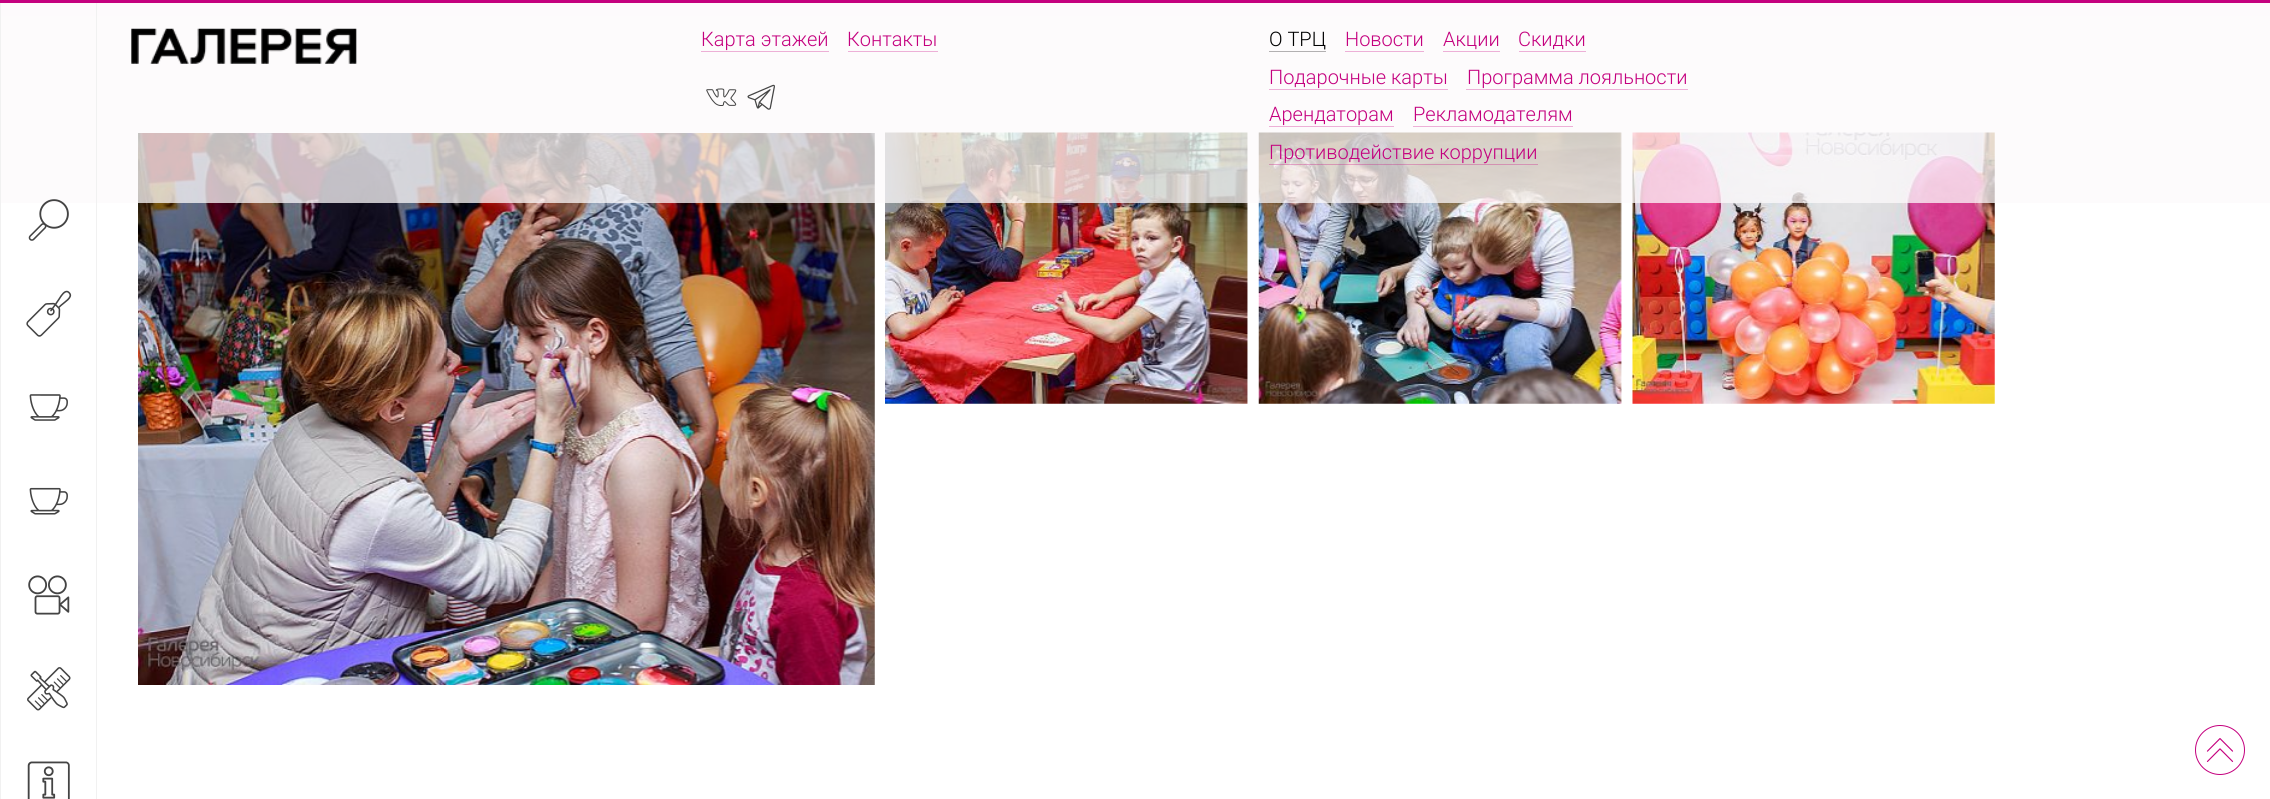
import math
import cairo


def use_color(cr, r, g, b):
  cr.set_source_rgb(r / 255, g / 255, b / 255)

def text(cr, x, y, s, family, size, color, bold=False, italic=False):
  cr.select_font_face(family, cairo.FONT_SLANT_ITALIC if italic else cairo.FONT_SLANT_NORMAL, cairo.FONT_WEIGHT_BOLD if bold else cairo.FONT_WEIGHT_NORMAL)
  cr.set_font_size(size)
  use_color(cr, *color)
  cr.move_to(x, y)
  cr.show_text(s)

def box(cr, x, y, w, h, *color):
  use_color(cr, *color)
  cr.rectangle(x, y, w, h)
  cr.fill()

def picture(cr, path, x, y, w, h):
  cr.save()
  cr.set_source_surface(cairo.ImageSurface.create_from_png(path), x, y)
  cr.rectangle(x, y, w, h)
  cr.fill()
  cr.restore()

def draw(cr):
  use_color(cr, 255, 255, 255)
  cr.paint()
  gradient = cairo.LinearGradient(1135, -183, 1135, 68)
  gradient.add_color_stop_rgba(0, 0.992, 0.953, 0.976, 1)
  gradient.add_color_stop_rgba(1, 1, 1, 1, 1)
  cr.set_source(gradient)
  cr.rectangle(1, 3, 2269, 13)
  cr.fill()
  picture(cr, "img_08.png", 138, 133, 737, 552)
  picture(cr, "img_09.png", 885, 132, 363, 272)
  picture(cr, "img_10.png", 1258, 132, 364, 272)
  picture(cr, "img_11.png", 1632, 132, 363, 272)
  cr.set_source_rgba(1, 1, 1, 0.5)
  cr.rectangle(138, 132, 1857, 71)
  cr.fill()
  cr.set_source_rgba(0.992, 0.973, 0.984, 0.5)
  cr.rectangle(1, 3, 2269, 200)
  cr.fill()
  box(cr, 96, 3, 1, 796, 241, 241, 241)
  box(cr, 0, 3, 1, 796, 241, 241, 241)
  picture(cr, "img_01.png", 28, 199, 41, 42)
  picture(cr, "img_02.png", 26, 290, 46, 47)
  picture(cr, "img_03.png", 29, 394, 39, 27)
  picture(cr, "img_04.png", 29, 487, 39, 28)
  picture(cr, "img_05.png", 28, 575, 42, 40)
  picture(cr, "img_06.png", 27, 667, 44, 44)
  picture(cr, "img_07.png", 27, 761, 43, 38)
  box(cr, 0, 0, 2270, 3, 196, 0, 126)
  picture(cr, "img_12.png", 131, 28, 226, 36)
  cr.set_source_rgba(0.769, 0, 0.494, 0.3)
  cr.rectangle(701, 51, 128, 1)
  cr.fill()
  box(cr, 848, 51, 90, 1, 237, 176, 215)
  picture(cr, "img_13.png", 706, 88, 31, 18)
  picture(cr, "img_14.png", 747, 84, 28, 26)
  box(cr, 1269, 51, 57, 1, 178, 176, 177)
  box(cr, 1345, 51, 79, 1, 237, 176, 215)
  box(cr, 1443, 51, 57, 1, 237, 176, 215)
  box(cr, 1519, 51, 67, 1, 237, 176, 215)
  box(cr, 1269, 89, 179, 1, 237, 176, 215)
  box(cr, 1466, 89, 222, 1, 237, 176, 215)
  box(cr, 1269, 126, 125, 1, 237, 176, 215)
  box(cr, 1413, 126, 160, 1, 237, 176, 215)
  cr.set_source_rgba(0.769, 0, 0.494, 0.3)
  cr.rectangle(1269, 164, 269, 1)
  cr.fill()
  cr.arc(2220, 750, 24.5, 0, 2 * math.pi)
  use_color(cr, 196, 0, 126)
  cr.set_line_width(1)
  cr.stroke()
  picture(cr, "img_15.png", 2206, 738, 28, 24)
  text(cr, 701, 46, "Карта этажей", "Roboto Light", 20, (196, 0, 126))
  text(cr, 847, 46, "Контакты", "Roboto Light", 20, (196, 0, 126))
  text(cr, 1269, 46, "О ТРЦ", "Roboto Light", 20, (0, 0, 0))
  text(cr, 1345, 46, "Новости", "Roboto Light", 20, (196, 0, 126))
  text(cr, 1443, 46, "Акции", "Roboto Light", 20, (196, 0, 126))
  text(cr, 1518, 46, "Скидки", "Roboto Light", 20, (196, 0, 126))
  text(cr, 1269, 84, "Подарочные карты", "Roboto Light", 20, (196, 0, 126))
  text(cr, 1467, 84, "Программа лояльности", "Roboto Light", 20, (196, 0, 126))
  text(cr, 1269, 121, "Арендаторам", "Roboto Light", 20, (196, 0, 126))
  text(cr, 1413, 121, "Рекламодателям", "Roboto Light", 20, (196, 0, 126))
  text(cr, 1269, 159, "Противодействие коррупции", "Roboto Light", 20, (196, 0, 126))


surface = cairo.ImageSurface(cairo.FORMAT_RGB24, 2270, 799)
cr = cairo.Context(surface)
options = cairo.FontOptions()
options.set_hint_metrics(cairo.HINT_METRICS_OFF)
options.set_hint_style(cairo.HINT_STYLE_NONE)
cr.set_font_options(options)
cr.set_miter_limit(4)
draw(cr)
surface.write_to_png("out.png")
